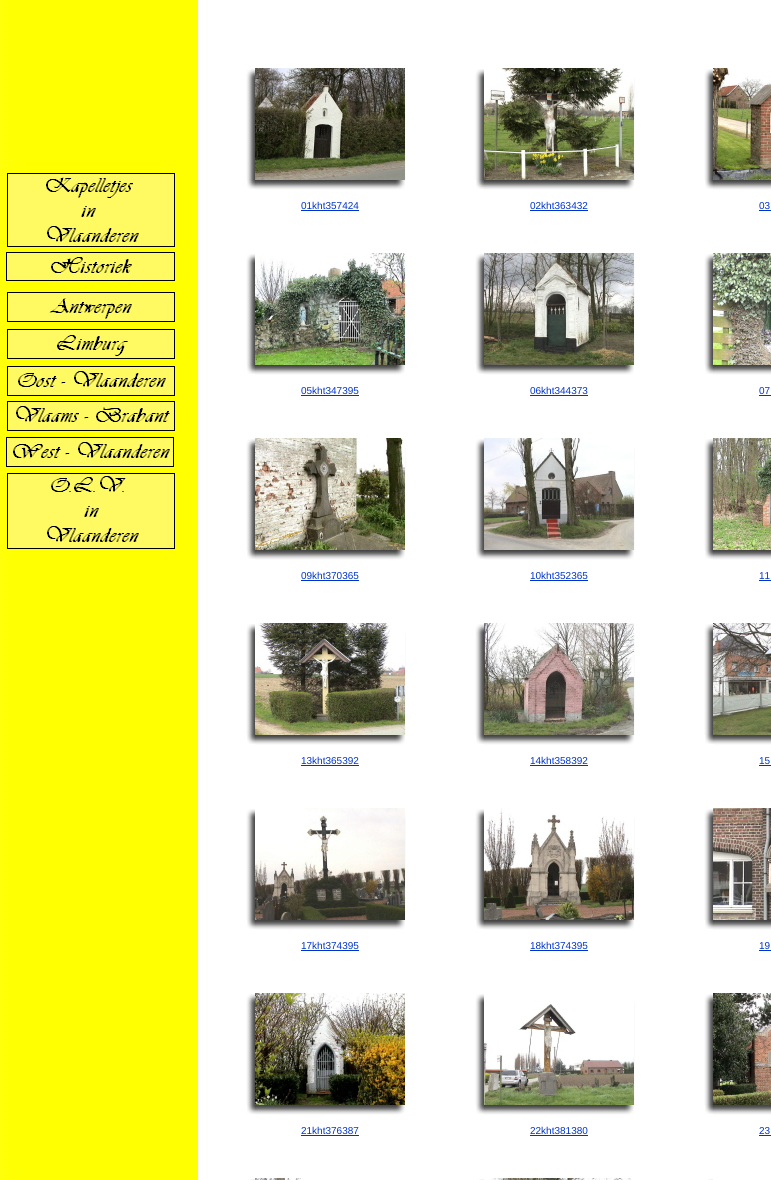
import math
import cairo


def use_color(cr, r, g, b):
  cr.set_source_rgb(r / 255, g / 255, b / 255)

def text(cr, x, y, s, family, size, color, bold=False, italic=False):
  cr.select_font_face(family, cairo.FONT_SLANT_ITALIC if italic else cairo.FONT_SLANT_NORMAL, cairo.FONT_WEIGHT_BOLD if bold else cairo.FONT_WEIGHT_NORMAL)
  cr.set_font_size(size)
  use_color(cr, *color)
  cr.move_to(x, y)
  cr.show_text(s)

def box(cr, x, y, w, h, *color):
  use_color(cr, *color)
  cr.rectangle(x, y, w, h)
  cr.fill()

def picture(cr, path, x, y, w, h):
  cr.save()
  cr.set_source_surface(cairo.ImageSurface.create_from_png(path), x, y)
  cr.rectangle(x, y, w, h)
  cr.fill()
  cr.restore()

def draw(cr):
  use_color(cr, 255, 255, 255)
  cr.paint()
  picture(cr, "img_01.png", 0, 0, 198, 1180)
  picture(cr, "img_02.png", 7, 173, 168, 74)
  picture(cr, "img_03.png", 246, 69, 9, 111)
  picture(cr, "img_04.png", 255, 68, 150, 112)
  box(cr, 405, 78, 1, 102, 250, 250, 250)
  picture(cr, "img_05.png", 247, 180, 8, 9)
  picture(cr, "img_06.png", 255, 180, 141, 10)
  picture(cr, "img_07.png", 396, 180, 9, 10)
  box(cr, 301, 210, 58, 1, 0, 51, 204)
  picture(cr, "img_03.png", 475, 69, 9, 111)
  picture(cr, "img_08.png", 484, 68, 150, 112)
  box(cr, 634, 78, 1, 102, 250, 250, 250)
  picture(cr, "img_05.png", 476, 180, 8, 9)
  picture(cr, "img_06.png", 484, 180, 141, 10)
  picture(cr, "img_07.png", 625, 180, 9, 10)
  box(cr, 530, 210, 58, 1, 0, 51, 204)
  picture(cr, "img_03.png", 704, 69, 9, 111)
  picture(cr, "img_09.png", 713, 68, 58, 112)
  picture(cr, "img_05.png", 705, 180, 8, 9)
  picture(cr, "img_10.png", 713, 180, 58, 10)
  box(cr, 759, 210, 12, 1, 0, 51, 204)
  picture(cr, "img_03.png", 246, 254, 9, 111)
  picture(cr, "img_11.png", 255, 253, 150, 112)
  box(cr, 405, 263, 1, 102, 250, 250, 250)
  picture(cr, "img_05.png", 247, 365, 8, 9)
  picture(cr, "img_06.png", 255, 365, 141, 10)
  picture(cr, "img_07.png", 396, 365, 9, 10)
  box(cr, 301, 395, 58, 1, 0, 51, 204)
  picture(cr, "img_03.png", 475, 254, 9, 111)
  picture(cr, "img_12.png", 484, 253, 150, 112)
  box(cr, 634, 263, 1, 102, 250, 250, 250)
  picture(cr, "img_05.png", 476, 365, 8, 9)
  picture(cr, "img_06.png", 484, 365, 141, 10)
  picture(cr, "img_07.png", 625, 365, 9, 10)
  box(cr, 530, 395, 58, 1, 0, 51, 204)
  picture(cr, "img_03.png", 704, 254, 9, 111)
  picture(cr, "img_13.png", 713, 253, 58, 112)
  picture(cr, "img_05.png", 705, 365, 8, 9)
  picture(cr, "img_10.png", 713, 365, 58, 10)
  box(cr, 759, 395, 12, 1, 0, 51, 204)
  picture(cr, "img_03.png", 246, 439, 9, 111)
  picture(cr, "img_14.png", 255, 438, 150, 112)
  box(cr, 405, 448, 1, 102, 250, 250, 250)
  picture(cr, "img_05.png", 247, 550, 8, 9)
  picture(cr, "img_06.png", 255, 550, 141, 10)
  picture(cr, "img_07.png", 396, 550, 9, 10)
  box(cr, 301, 580, 58, 1, 0, 51, 204)
  picture(cr, "img_03.png", 475, 439, 9, 111)
  picture(cr, "img_15.png", 484, 438, 150, 112)
  box(cr, 634, 448, 1, 102, 250, 250, 250)
  picture(cr, "img_05.png", 476, 550, 8, 9)
  picture(cr, "img_06.png", 484, 550, 141, 10)
  picture(cr, "img_07.png", 625, 550, 9, 10)
  box(cr, 530, 580, 58, 1, 0, 51, 204)
  picture(cr, "img_03.png", 704, 439, 9, 111)
  picture(cr, "img_16.png", 713, 438, 58, 112)
  picture(cr, "img_05.png", 705, 550, 8, 9)
  picture(cr, "img_10.png", 713, 550, 58, 10)
  box(cr, 759, 580, 12, 1, 0, 51, 204)
  picture(cr, "img_03.png", 246, 624, 9, 111)
  picture(cr, "img_17.png", 255, 623, 150, 112)
  box(cr, 405, 633, 1, 102, 250, 250, 250)
  picture(cr, "img_05.png", 247, 735, 8, 9)
  picture(cr, "img_06.png", 255, 735, 141, 10)
  picture(cr, "img_07.png", 396, 735, 9, 10)
  box(cr, 301, 765, 58, 1, 0, 51, 204)
  picture(cr, "img_03.png", 475, 624, 9, 111)
  picture(cr, "img_18.png", 484, 623, 150, 112)
  box(cr, 634, 633, 1, 102, 250, 250, 250)
  picture(cr, "img_05.png", 476, 735, 8, 9)
  picture(cr, "img_06.png", 484, 735, 141, 10)
  picture(cr, "img_07.png", 625, 735, 9, 10)
  box(cr, 530, 765, 58, 1, 0, 51, 204)
  picture(cr, "img_03.png", 704, 624, 9, 111)
  picture(cr, "img_19.png", 713, 623, 58, 112)
  picture(cr, "img_05.png", 705, 735, 8, 9)
  picture(cr, "img_10.png", 713, 735, 58, 10)
  box(cr, 759, 765, 12, 1, 0, 51, 204)
  picture(cr, "img_03.png", 246, 809, 9, 111)
  picture(cr, "img_20.png", 255, 808, 150, 112)
  box(cr, 405, 818, 1, 102, 250, 250, 250)
  picture(cr, "img_05.png", 247, 920, 8, 9)
  picture(cr, "img_06.png", 255, 920, 141, 10)
  picture(cr, "img_07.png", 396, 920, 9, 10)
  box(cr, 301, 950, 58, 1, 0, 51, 204)
  picture(cr, "img_03.png", 475, 809, 9, 111)
  picture(cr, "img_21.png", 484, 808, 150, 112)
  box(cr, 634, 818, 1, 102, 250, 250, 250)
  picture(cr, "img_05.png", 476, 920, 8, 9)
  picture(cr, "img_06.png", 484, 920, 141, 10)
  picture(cr, "img_07.png", 625, 920, 9, 10)
  box(cr, 530, 950, 58, 1, 0, 51, 204)
  picture(cr, "img_03.png", 704, 809, 9, 111)
  picture(cr, "img_22.png", 713, 808, 58, 112)
  picture(cr, "img_05.png", 705, 920, 8, 9)
  picture(cr, "img_10.png", 713, 920, 58, 10)
  box(cr, 759, 950, 12, 1, 0, 51, 204)
  picture(cr, "img_03.png", 246, 994, 9, 111)
  picture(cr, "img_23.png", 255, 993, 150, 112)
  box(cr, 405, 1003, 1, 102, 250, 250, 250)
  picture(cr, "img_05.png", 247, 1105, 8, 9)
  picture(cr, "img_06.png", 255, 1105, 141, 10)
  picture(cr, "img_07.png", 396, 1105, 9, 10)
  box(cr, 301, 1135, 58, 1, 0, 51, 204)
  picture(cr, "img_03.png", 475, 994, 9, 111)
  picture(cr, "img_24.png", 484, 1001, 150, 104)
  box(cr, 634, 1003, 1, 102, 250, 250, 250)
  picture(cr, "img_05.png", 476, 1105, 8, 9)
  picture(cr, "img_06.png", 484, 1105, 141, 10)
  picture(cr, "img_07.png", 625, 1105, 9, 10)
  box(cr, 530, 1135, 58, 1, 0, 51, 204)
  picture(cr, "img_03.png", 704, 994, 9, 111)
  picture(cr, "img_25.png", 713, 993, 58, 112)
  picture(cr, "img_05.png", 705, 1105, 8, 9)
  picture(cr, "img_10.png", 713, 1105, 58, 10)
  box(cr, 759, 1135, 12, 1, 0, 51, 204)
  picture(cr, "img_26.png", 250, 1179, 5, 1)
  picture(cr, "img_27.png", 255, 1178, 46, 2)
  picture(cr, "img_26.png", 479, 1179, 5, 1)
  picture(cr, "img_28.png", 491, 1178, 140, 2)
  picture(cr, "img_26.png", 708, 1179, 5, 1)
  picture(cr, "img_29.png", 6, 252, 169, 29)
  picture(cr, "img_30.png", 7, 292, 168, 30)
  picture(cr, "img_31.png", 7, 329, 168, 30)
  picture(cr, "img_32.png", 7, 366, 168, 30)
  picture(cr, "img_33.png", 7, 401, 168, 30)
  picture(cr, "img_34.png", 6, 437, 168, 30)
  picture(cr, "img_35.png", 7, 473, 168, 76)
  text(cr, 301, 209, "01kht357424", "Liberation Sans", 10, (0, 51, 204))
  text(cr, 530, 209, "02kht363432", "Liberation Sans", 10, (0, 51, 204))
  text(cr, 759, 209, "03", "Liberation Sans", 10, (0, 51, 204))
  text(cr, 301, 394, "05kht347395", "Liberation Sans", 10, (0, 51, 204))
  text(cr, 530, 394, "06kht344373", "Liberation Sans", 10, (0, 51, 204))
  text(cr, 759, 394, "07", "Liberation Sans", 10, (0, 51, 204))
  text(cr, 301, 579, "09kht370365", "Liberation Sans", 10, (0, 51, 204))
  text(cr, 530, 579, "10kht352365", "Liberation Sans", 10, (0, 51, 204))
  text(cr, 759, 579, "11", "Liberation Sans", 10, (0, 51, 204))
  text(cr, 301, 764, "13kht365392", "Liberation Sans", 10, (0, 51, 204))
  text(cr, 530, 764, "14kht358392", "Liberation Sans", 10, (0, 51, 204))
  text(cr, 759, 764, "15", "Liberation Sans", 10, (0, 51, 204))
  text(cr, 301, 949, "17kht374395", "Liberation Sans", 10, (0, 51, 204))
  text(cr, 530, 949, "18kht374395", "Liberation Sans", 10, (0, 51, 204))
  text(cr, 759, 949, "19", "Liberation Sans", 10, (0, 51, 204))
  text(cr, 301, 1134, "21kht376387", "Liberation Sans", 10, (0, 51, 204))
  text(cr, 530, 1134, "22kht381380", "Liberation Sans", 10, (0, 51, 204))
  text(cr, 759, 1134, "23", "Liberation Sans", 10, (0, 51, 204))


surface = cairo.ImageSurface(cairo.FORMAT_RGB24, 771, 1180)
cr = cairo.Context(surface)
options = cairo.FontOptions()
options.set_hint_metrics(cairo.HINT_METRICS_OFF)
options.set_hint_style(cairo.HINT_STYLE_NONE)
cr.set_font_options(options)
cr.set_miter_limit(4)
draw(cr)
surface.write_to_png("out.png")
